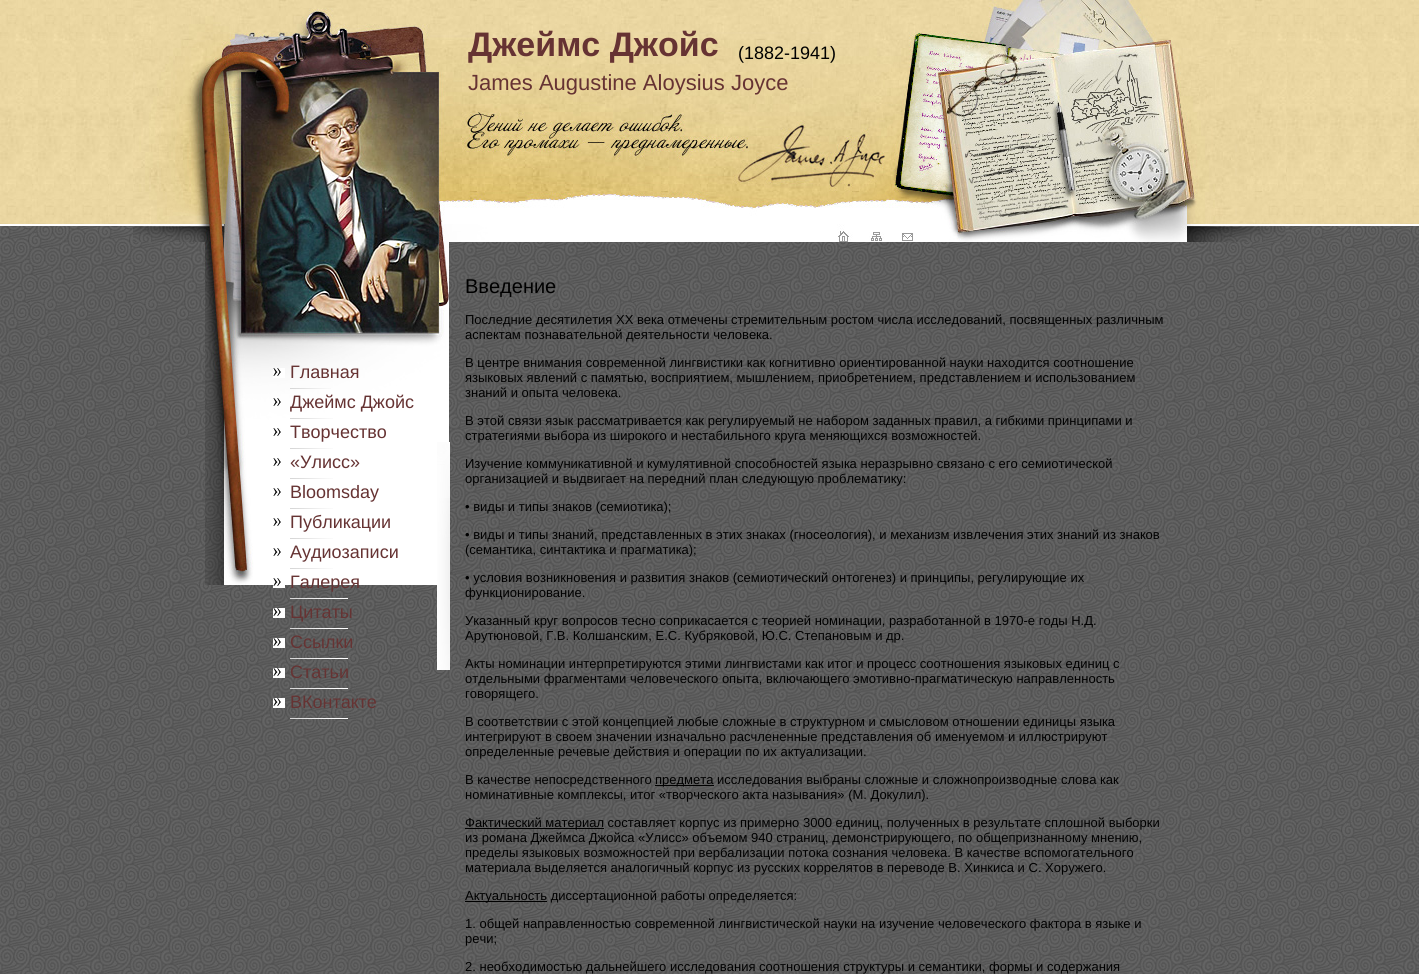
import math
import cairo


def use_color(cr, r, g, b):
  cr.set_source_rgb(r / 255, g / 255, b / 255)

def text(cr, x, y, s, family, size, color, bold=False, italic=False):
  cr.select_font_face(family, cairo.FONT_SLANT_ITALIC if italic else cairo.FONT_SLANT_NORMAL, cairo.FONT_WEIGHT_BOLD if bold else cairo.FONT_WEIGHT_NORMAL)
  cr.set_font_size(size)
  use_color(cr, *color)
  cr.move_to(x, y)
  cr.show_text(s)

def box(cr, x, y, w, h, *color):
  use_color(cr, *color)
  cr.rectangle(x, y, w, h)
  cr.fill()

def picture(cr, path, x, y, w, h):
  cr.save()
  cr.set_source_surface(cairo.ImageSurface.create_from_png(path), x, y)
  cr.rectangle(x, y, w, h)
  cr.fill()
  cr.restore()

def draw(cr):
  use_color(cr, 255, 255, 255)
  cr.paint()
  picture(cr, "img_01.png", 0, 226, 1419, 748)
  picture(cr, "img_02.png", 0, 0, 1419, 226)
  picture(cr, "img_03.png", 109, 0, 1201, 224)
  picture(cr, "img_04.png", 133, 0, 1153, 242)
  picture(cr, "img_05.png", 205, 242, 244, 343)
  picture(cr, "img_06.png", 437, 442, 13, 228)
  picture(cr, "img_07.png", 290, 388, 41, 1)
  picture(cr, "img_08.png", 273, 368, 12, 10)
  picture(cr, "img_09.png", 290, 418, 43, 1)
  picture(cr, "img_10.png", 273, 398, 8, 8)
  picture(cr, "img_09.png", 290, 448, 43, 1)
  picture(cr, "img_10.png", 273, 428, 8, 8)
  picture(cr, "img_09.png", 290, 478, 43, 1)
  picture(cr, "img_10.png", 273, 458, 8, 8)
  picture(cr, "img_09.png", 290, 508, 43, 1)
  picture(cr, "img_10.png", 273, 488, 8, 8)
  picture(cr, "img_09.png", 290, 538, 43, 1)
  picture(cr, "img_10.png", 273, 518, 8, 8)
  picture(cr, "img_09.png", 290, 568, 43, 1)
  picture(cr, "img_10.png", 273, 548, 8, 8)
  picture(cr, "img_11.png", 290, 598, 58, 1)
  picture(cr, "img_08.png", 273, 578, 12, 10)
  picture(cr, "img_11.png", 290, 628, 58, 1)
  picture(cr, "img_08.png", 273, 608, 12, 10)
  picture(cr, "img_11.png", 290, 658, 58, 1)
  picture(cr, "img_08.png", 273, 638, 12, 10)
  picture(cr, "img_11.png", 290, 688, 58, 1)
  picture(cr, "img_08.png", 273, 668, 12, 10)
  picture(cr, "img_11.png", 290, 718, 58, 1)
  picture(cr, "img_08.png", 273, 698, 12, 10)
  box(cr, 655, 785, 59, 1, 0, 0, 0)
  box(cr, 465, 828, 139, 1, 0, 0, 0)
  box(cr, 465, 901, 82, 1, 0, 0, 0)
  text(cr, 468, 56, "Джеймс Джойс", "Liberation Sans", 34, (102, 51, 51), bold=True)
  text(cr, 738, 59, "(1882-1941)", "Liberation Sans", 18, (0, 0, 0))
  text(cr, 468, 90, "James Augustine Aloysius Joyce", "Liberation Sans", 22, (102, 51, 51))
  text(cr, 290, 378, "Главная", "Liberation Sans", 18, (102, 51, 51))
  text(cr, 290, 408, "Джеймс Джойс", "Liberation Sans", 18, (102, 51, 51))
  text(cr, 290, 438, "Творчество", "Liberation Sans", 18, (102, 51, 51))
  text(cr, 290, 468, "«Улисс»", "Liberation Sans", 18, (102, 51, 51))
  text(cr, 290, 498, "Bloomsday", "Liberation Sans", 18, (102, 51, 51))
  text(cr, 290, 528, "Публикации", "Liberation Sans", 18, (102, 51, 51))
  text(cr, 290, 558, "Аудиозаписи", "Liberation Sans", 18, (102, 51, 51))
  text(cr, 290, 588, "Галерея", "Liberation Sans", 18, (102, 51, 51))
  text(cr, 290, 618, "Цитаты", "Liberation Sans", 18, (102, 51, 51))
  text(cr, 290, 648, "Ссылки", "Liberation Sans", 18, (102, 51, 51))
  text(cr, 290, 678, "Статьи", "Liberation Sans", 18, (102, 51, 51))
  text(cr, 290, 708, "ВКонтакте", "Liberation Sans", 18, (102, 51, 51))
  text(cr, 465, 293, "Введение", "Liberation Sans", 20, (0, 0, 0))
  text(cr, 465, 324, "Последние десятилетия XX века отмечены стремительным ростом числа исследований, посвященных различным", "Liberation Sans", 13, (0, 0, 0))
  text(cr, 465, 339, "аспектам познавательной деятельности человека.", "Liberation Sans", 13, (0, 0, 0))
  text(cr, 465, 367, "В центре внимания современной лингвистики как когнитивно ориентированной науки находится соотношение", "Liberation Sans", 13, (0, 0, 0))
  text(cr, 465, 382, "языковых явлений с памятью, восприятием, мышлением, приобретением, представлением и использованием", "Liberation Sans", 13, (0, 0, 0))
  text(cr, 465, 397, "знаний и опыта человека.", "Liberation Sans", 13, (0, 0, 0))
  text(cr, 465, 425, "В этой связи язык рассматривается как регулируемый не набором заданных правил, а гибкими принципами и", "Liberation Sans", 13, (0, 0, 0))
  text(cr, 465, 440, "стратегиями выбора из широкого и нестабильного круга меняющихся возможностей.", "Liberation Sans", 13, (0, 0, 0))
  text(cr, 465, 468, "Изучение коммуникативной и кумулятивной способностей языка неразрывно связано с его семиотической", "Liberation Sans", 13, (0, 0, 0))
  text(cr, 465, 483, "организацией и выдвигает на передний план следующую проблематику:", "Liberation Sans", 13, (0, 0, 0))
  text(cr, 465, 511, "• виды и типы знаков (семиотика);", "Liberation Sans", 13, (0, 0, 0))
  text(cr, 465, 539, "• виды и типы знаний, представленных в этих знаках (гносеология), и механизм извлечения этих знаний из знаков", "Liberation Sans", 13, (0, 0, 0))
  text(cr, 465, 554, "(семантика, синтактика и прагматика);", "Liberation Sans", 13, (0, 0, 0))
  text(cr, 465, 582, "• условия возникновения и развития знаков (семиотический онтогенез) и принципы, регулирующие их", "Liberation Sans", 13, (0, 0, 0))
  text(cr, 465, 597, "функционирование.", "Liberation Sans", 13, (0, 0, 0))
  text(cr, 465, 625, "Указанный круг вопросов тесно соприкасается с теорией номинации, разработанной в 1970-е годы Н.Д.", "Liberation Sans", 13, (0, 0, 0))
  text(cr, 465, 640, "Арутюновой, Г.В. Колшанским, Е.С. Кубряковой, Ю.С. Степановым и др.", "Liberation Sans", 13, (0, 0, 0))
  text(cr, 465, 668, "Акты номинации интерпретируются этими лингвистами как итог и процесс соотношения языковых единиц с", "Liberation Sans", 13, (0, 0, 0))
  text(cr, 465, 683, "отдельными фрагментами человеческого опыта, включающего эмотивно-прагматическую направленность", "Liberation Sans", 13, (0, 0, 0))
  text(cr, 465, 698, "говорящего.", "Liberation Sans", 13, (0, 0, 0))
  text(cr, 465, 726, "В соответствии с этой концепцией любые сложные в структурном и смысловом отношении единицы языка", "Liberation Sans", 13, (0, 0, 0))
  text(cr, 465, 741, "интегрируют в своем значении изначально расчлененные представления об именуемом и иллюстрируют", "Liberation Sans", 13, (0, 0, 0))
  text(cr, 465, 756, "определенные речевые действия и операции по их актуализации.", "Liberation Sans", 13, (0, 0, 0))
  text(cr, 465, 784, "В качестве непосредственного", "Liberation Sans", 13, (0, 0, 0))
  text(cr, 655, 784, "предмета исследования выбраны сложные и сложнопроизводные слова как", "Liberation Sans", 13, (0, 0, 0))
  text(cr, 465, 799, "номинативные комплексы, итог «творческого акта называния» (М. Докулил).", "Liberation Sans", 13, (0, 0, 0))
  text(cr, 465, 827, "Фактический материал составляет корпус из примерно 3000 единиц, полученных в результате сплошной выборки", "Liberation Sans", 13, (0, 0, 0))
  text(cr, 465, 842, "из романа Джеймса Джойса «Улисс» объемом 940 страниц, демонстрирующего, по общепризнанному мнению,", "Liberation Sans", 13, (0, 0, 0))
  text(cr, 465, 857, "пределы языковых возможностей при вербализации потока сознания человека. В качестве вспомогательного", "Liberation Sans", 13, (0, 0, 0))
  text(cr, 465, 872, "материала выделяется аналогичный корпус из русских коррелятов в переводе В. Хинкиса и С. Хоружего.", "Liberation Sans", 13, (0, 0, 0))
  text(cr, 465, 900, "Актуальность диссертационной работы определяется:", "Liberation Sans", 13, (0, 0, 0))
  text(cr, 465, 928, "1. общей направленностью современной лингвистической науки на изучение человеческого фактора в языке и", "Liberation Sans", 13, (0, 0, 0))
  text(cr, 465, 943, "речи;", "Liberation Sans", 13, (0, 0, 0))
  text(cr, 465, 971, "2. необходимостью дальнейшего исследования соотношения структуры и семантики, формы и содержания", "Liberation Sans", 13, (0, 0, 0))


surface = cairo.ImageSurface(cairo.FORMAT_RGB24, 1419, 974)
cr = cairo.Context(surface)
options = cairo.FontOptions()
options.set_hint_metrics(cairo.HINT_METRICS_OFF)
options.set_hint_style(cairo.HINT_STYLE_NONE)
cr.set_font_options(options)
cr.set_miter_limit(4)
draw(cr)
surface.write_to_png("out.png")
